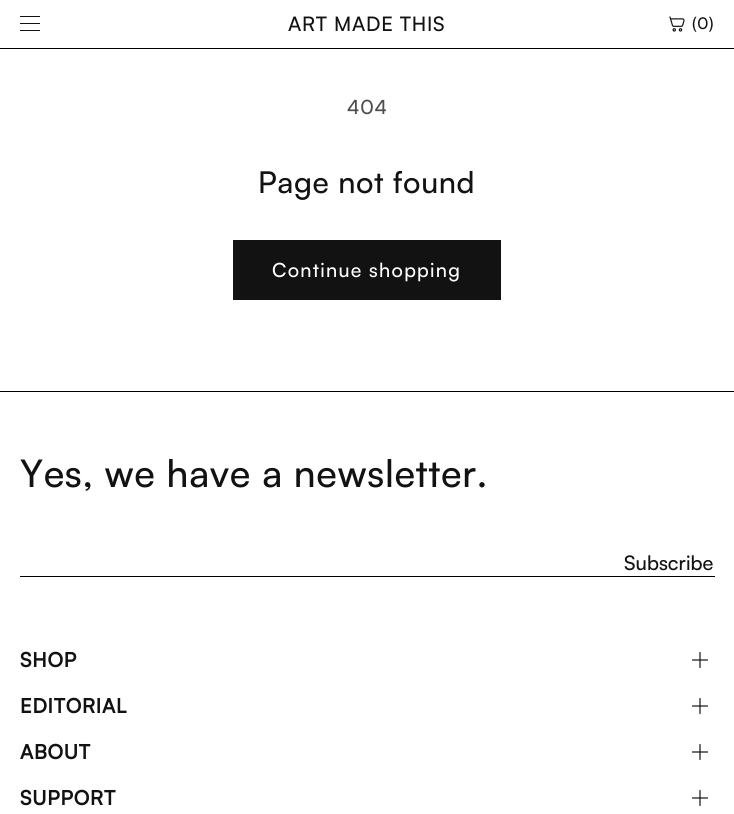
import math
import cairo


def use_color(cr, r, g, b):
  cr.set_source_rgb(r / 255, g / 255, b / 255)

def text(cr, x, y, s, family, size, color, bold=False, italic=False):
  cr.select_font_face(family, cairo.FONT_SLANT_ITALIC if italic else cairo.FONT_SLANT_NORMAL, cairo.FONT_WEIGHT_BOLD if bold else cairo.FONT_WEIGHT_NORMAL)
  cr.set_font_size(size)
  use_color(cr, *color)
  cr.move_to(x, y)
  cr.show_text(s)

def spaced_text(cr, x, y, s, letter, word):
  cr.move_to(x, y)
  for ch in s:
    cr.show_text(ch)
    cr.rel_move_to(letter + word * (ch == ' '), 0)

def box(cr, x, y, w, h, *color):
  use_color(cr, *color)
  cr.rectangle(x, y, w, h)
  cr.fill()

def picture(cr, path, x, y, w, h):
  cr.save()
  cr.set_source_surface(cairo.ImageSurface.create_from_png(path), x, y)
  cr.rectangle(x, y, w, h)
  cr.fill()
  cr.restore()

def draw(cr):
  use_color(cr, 255, 255, 255)
  cr.paint()
  box(cr, 0, 48, 734, 1, 0, 0, 0)
  box(cr, 20, 23, 20, 1, 18, 18, 18)
  box(cr, 20, 16, 20, 1, 18, 18, 18)
  box(cr, 20, 30, 20, 1, 18, 18, 18)
  picture(cr, "img_01.png", 669, 16, 16, 16)
  box(cr, 233, 240, 268, 60, 18, 18, 18)
  box(cr, 0, 391, 734, 1, 0, 0, 0)
  box(cr, 20, 576, 695, 1, 0, 0, 0)
  picture(cr, "img_02.png", 692, 652, 16, 16)
  picture(cr, "img_02.png", 692, 698, 16, 16)
  picture(cr, "img_02.png", 692, 744, 16, 16)
  picture(cr, "img_02.png", 692, 790, 16, 16)
  cr.select_font_face("Satoshi Medium")
  cr.set_font_size(20)
  use_color(cr, 18, 18, 18)
  spaced_text(cr, 288, 31, "ART MADE THIS", 0.75, 0)
  cr.set_font_size(16)
  spaced_text(cr, 692, 29, "(0)", 0.75, 0)
  cr.set_font_size(19.5)
  use_color(cr, 77, 77, 77)
  spaced_text(cr, 347, 114, "404", 0.75, 0)
  cr.set_font_size(30)
  use_color(cr, 18, 18, 18)
  spaced_text(cr, 258, 193, "Page not found", 0.6, 0)
  cr.set_font_size(19.5)
  use_color(cr, 255, 255, 255)
  spaced_text(cr, 272, 277, "Continue shopping", 1.25, 0)
  cr.set_font_size(38)
  use_color(cr, 18, 18, 18)
  spaced_text(cr, 20, 487, "Yes, we have a newsletter.", 0.6, 0)
  text(cr, 624, 570, "Subscribe", "Satoshi Medium", 20, (18, 18, 18))
  cr.select_font_face("Satoshi", cairo.FONT_SLANT_NORMAL, cairo.FONT_WEIGHT_BOLD)
  spaced_text(cr, 20, 667, "SHOP", 0.75, 0)
  spaced_text(cr, 20, 713, "EDITORIAL", 0.75, 0)
  spaced_text(cr, 20, 759, "ABOUT", 0.75, 0)
  spaced_text(cr, 20, 805, "SUPPORT", 0.75, 0)


surface = cairo.ImageSurface(cairo.FORMAT_RGB24, 734, 814)
cr = cairo.Context(surface)
options = cairo.FontOptions()
options.set_hint_metrics(cairo.HINT_METRICS_OFF)
options.set_hint_style(cairo.HINT_STYLE_NONE)
cr.set_font_options(options)
cr.set_miter_limit(4)
draw(cr)
surface.write_to_png("out.png")
